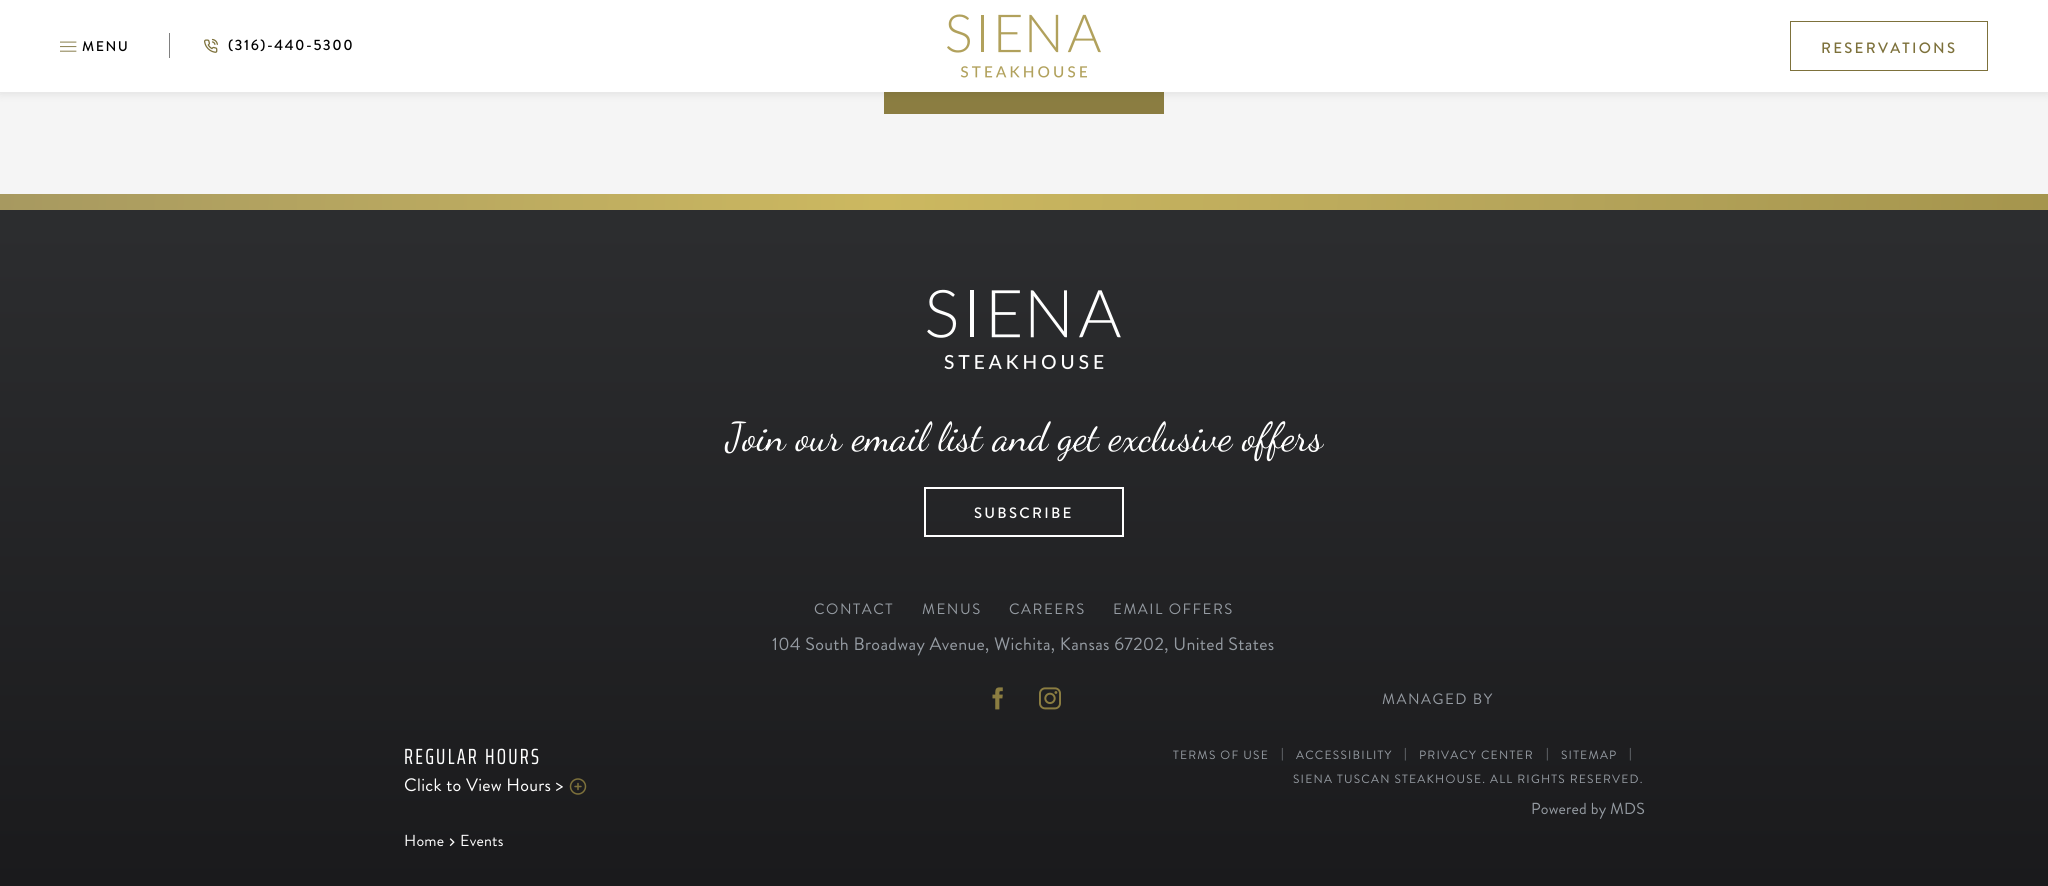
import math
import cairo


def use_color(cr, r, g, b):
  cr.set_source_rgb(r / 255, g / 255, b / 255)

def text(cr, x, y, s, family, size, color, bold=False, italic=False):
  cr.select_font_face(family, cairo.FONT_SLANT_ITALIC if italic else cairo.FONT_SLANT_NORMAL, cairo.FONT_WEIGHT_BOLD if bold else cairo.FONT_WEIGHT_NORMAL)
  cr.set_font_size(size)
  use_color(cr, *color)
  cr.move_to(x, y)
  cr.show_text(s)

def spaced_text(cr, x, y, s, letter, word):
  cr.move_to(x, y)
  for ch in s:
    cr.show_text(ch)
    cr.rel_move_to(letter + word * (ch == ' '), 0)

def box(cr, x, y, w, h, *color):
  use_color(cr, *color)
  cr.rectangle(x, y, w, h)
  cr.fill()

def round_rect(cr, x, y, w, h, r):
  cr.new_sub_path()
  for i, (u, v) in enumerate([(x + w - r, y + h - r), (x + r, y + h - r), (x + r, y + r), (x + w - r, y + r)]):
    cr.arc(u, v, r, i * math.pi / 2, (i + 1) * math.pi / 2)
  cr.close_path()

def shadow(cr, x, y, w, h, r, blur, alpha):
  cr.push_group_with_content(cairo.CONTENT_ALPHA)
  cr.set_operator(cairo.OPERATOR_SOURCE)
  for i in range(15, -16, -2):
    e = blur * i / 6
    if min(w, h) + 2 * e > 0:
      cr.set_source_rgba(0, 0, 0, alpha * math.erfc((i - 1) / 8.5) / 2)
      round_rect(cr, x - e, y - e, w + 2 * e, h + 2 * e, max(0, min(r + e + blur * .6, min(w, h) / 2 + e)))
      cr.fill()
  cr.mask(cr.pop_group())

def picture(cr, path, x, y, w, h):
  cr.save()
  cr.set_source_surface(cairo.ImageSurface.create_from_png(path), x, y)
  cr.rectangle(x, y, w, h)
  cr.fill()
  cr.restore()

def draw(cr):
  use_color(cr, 245, 245, 245)
  cr.paint()
  box(cr, 884, 92, 280, 22, 139, 125, 65)
  use_color(cr, 0, 0, 0)
  shadow(cr, 0, 1, 2048, 92, 0, 5, 0.1)
  box(cr, 0, 0, 2048, 92, 255, 255, 255)
  picture(cr, "img_01.png", 60, 41, 17, 11)
  box(cr, 169, 33, 1, 25, 128, 128, 128)
  picture(cr, "img_02.png", 204, 38, 14, 15)
  picture(cr, "img_03.png", 947, 14, 154, 64)
  cr.rectangle(1790.5, 21.5, 197, 49)
  use_color(cr, 125, 113, 59)
  cr.set_line_width(1)
  cr.stroke()
  gradient = cairo.LinearGradient(1024, 194, 1024, 886)
  gradient.add_color_stop_rgba(0, 0.176, 0.18, 0.188, 1)
  gradient.add_color_stop_rgba(1, 0.102, 0.102, 0.11, 1)
  cr.set_source(gradient)
  cr.rectangle(0, 210, 2048, 676)
  cr.fill()
  gradient = cairo.LinearGradient(2.4, 148, 2046, 256)
  gradient.add_color_stop_rgba(0, 0.655, 0.6, 0.376, 1)
  gradient.add_color_stop_rgba(0.43, 0.8, 0.722, 0.376, 1)
  gradient.add_color_stop_rgba(0.76, 0.71, 0.643, 0.353, 1)
  gradient.add_color_stop_rgba(1, 0.647, 0.584, 0.302, 1)
  cr.set_source(gradient)
  cr.rectangle(0, 194, 2048, 16)
  cr.fill()
  picture(cr, "img_04.png", 927, 289, 194, 81)
  cr.rectangle(925, 488, 198, 48)
  use_color(cr, 255, 255, 255)
  cr.set_line_width(2)
  cr.stroke()
  picture(cr, "img_05.png", 992, 687, 11, 23)
  picture(cr, "img_06.png", 1039, 687, 22, 23)
  picture(cr, "img_07.png", 569, 778, 18, 17)
  picture(cr, "img_08.png", 449, 838, 6, 9)
  cr.select_font_face("Brandon Grotesque Medium")
  cr.set_font_size(14)
  use_color(cr, 1, 1, 1)
  spaced_text(cr, 82, 51, "MENU", 1.5, 0)
  cr.set_font_size(15)
  spaced_text(cr, 228, 50, "(316)-440-5300", 1.5, 0)
  use_color(cr, 125, 113, 59)
  spaced_text(cr, 1821, 53, "RESERVATIONS", 2.25, 0)
  text(cr, 726, 450, "Join our email list and get exclusive offers", "Dancing Script", 40, (255, 255, 255))
  cr.select_font_face("Brandon Grotesque Medium")
  cr.set_font_size(15)
  spaced_text(cr, 974, 518, "SUBSCRIBE", 2.25, 0)
  cr.select_font_face("Brandon Grotesque")
  use_color(cr, 149, 155, 162)
  spaced_text(cr, 814, 614, "CONTACT", 1.5, 0)
  spaced_text(cr, 922, 614, "MENUS", 1.5, 0)
  spaced_text(cr, 1009, 614, "CAREERS", 1.5, 0)
  spaced_text(cr, 1113, 614, "EMAIL OFFERS", 1.5, 0)
  cr.set_font_size(18)
  spaced_text(cr, 772, 650, "104 South Broadway Avenue, Wichita, Kansas 67202, United States", 0.35, 0)
  cr.set_font_size(15)
  spaced_text(cr, 1382, 704, "MANAGED BY", 1.5, 0)
  cr.select_font_face("Saira ExtraCondensed")
  cr.set_font_size(22)
  use_color(cr, 255, 255, 255)
  spaced_text(cr, 404, 764, "REGULAR HOURS", 2.25, 0)
  cr.select_font_face("Brandon Grotesque")
  cr.set_font_size(18)
  spaced_text(cr, 404, 791, "Click to View Hours >", 0.3, 0)
  cr.set_font_size(12)
  use_color(cr, 149, 155, 162)
  spaced_text(cr, 1173, 759, "TERMS OF USE", 1.2, 0)
  spaced_text(cr, 1281, 757, "|", 1.2, 0)
  spaced_text(cr, 1296, 759, "ACCESSIBILITY", 1.2, 0)
  spaced_text(cr, 1404, 757, "|", 1.2, 0)
  spaced_text(cr, 1419, 759, "PRIVACY CENTER", 1.2, 0)
  spaced_text(cr, 1546, 757, "|", 1.2, 0)
  spaced_text(cr, 1561, 759, "SITEMAP", 1.2, 0)
  spaced_text(cr, 1629, 757, "|", 1.2, 0)
  spaced_text(cr, 1293, 783, "SIENA TUSCAN STEAKHOUSE. ALL RIGHTS RESERVED.", 1.2, 0)
  cr.set_font_size(16)
  spaced_text(cr, 1531, 814, "Powered by MDS", 0.2, 0)
  use_color(cr, 255, 255, 255)
  spaced_text(cr, 404, 846, "Home", 0.2, 0)
  spaced_text(cr, 460, 846, "Events", 0.2, 0)


surface = cairo.ImageSurface(cairo.FORMAT_RGB24, 2048, 886)
cr = cairo.Context(surface)
options = cairo.FontOptions()
options.set_hint_metrics(cairo.HINT_METRICS_OFF)
options.set_hint_style(cairo.HINT_STYLE_NONE)
cr.set_font_options(options)
cr.set_miter_limit(4)
draw(cr)
surface.write_to_png("out.png")
